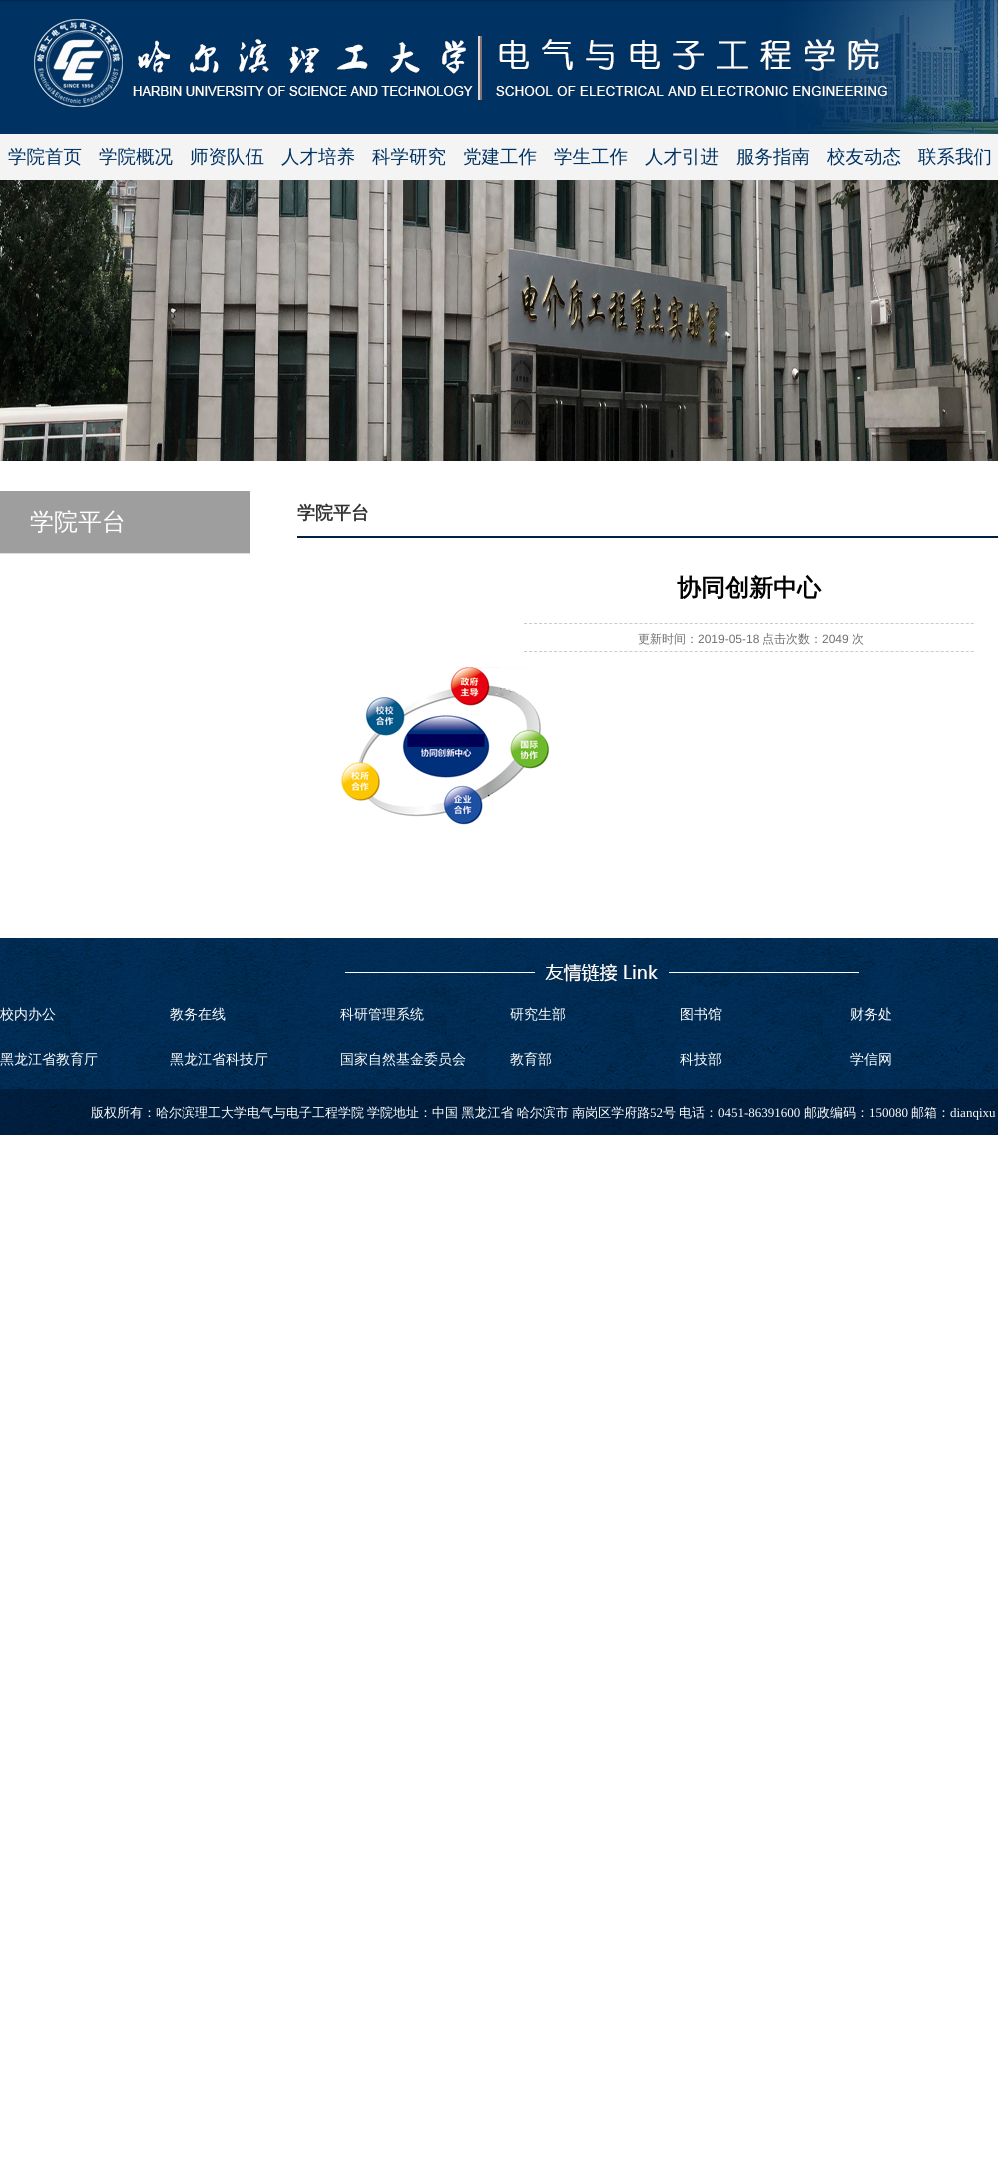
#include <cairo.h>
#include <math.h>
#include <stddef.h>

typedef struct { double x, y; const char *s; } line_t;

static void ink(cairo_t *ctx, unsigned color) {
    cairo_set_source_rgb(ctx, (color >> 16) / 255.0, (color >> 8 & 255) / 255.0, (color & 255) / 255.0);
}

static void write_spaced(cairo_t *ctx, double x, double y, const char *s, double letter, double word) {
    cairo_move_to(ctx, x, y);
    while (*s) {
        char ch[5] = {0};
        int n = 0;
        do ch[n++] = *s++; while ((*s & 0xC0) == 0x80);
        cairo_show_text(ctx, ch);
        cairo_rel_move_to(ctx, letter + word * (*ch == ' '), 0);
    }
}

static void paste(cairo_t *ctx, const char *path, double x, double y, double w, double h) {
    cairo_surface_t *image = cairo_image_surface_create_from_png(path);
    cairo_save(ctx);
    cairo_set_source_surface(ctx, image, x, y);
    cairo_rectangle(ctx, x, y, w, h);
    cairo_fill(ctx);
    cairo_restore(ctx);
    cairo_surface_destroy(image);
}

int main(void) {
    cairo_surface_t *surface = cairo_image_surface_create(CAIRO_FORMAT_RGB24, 998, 2157);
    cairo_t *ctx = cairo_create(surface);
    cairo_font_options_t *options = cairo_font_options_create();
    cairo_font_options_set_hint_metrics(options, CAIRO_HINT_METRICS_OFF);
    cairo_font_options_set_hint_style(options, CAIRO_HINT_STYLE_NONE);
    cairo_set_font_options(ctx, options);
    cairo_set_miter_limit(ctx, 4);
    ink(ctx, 0xFFFFFF);
    cairo_paint(ctx);
    paste(ctx, "media/1.png", 0, 0, 998, 180);
    paste(ctx, "media/2.png", 33, 0, 965, 134);
    cairo_select_font_face(ctx, "WenQuanYi Zen Hei Medium", CAIRO_FONT_SLANT_NORMAL, CAIRO_FONT_WEIGHT_NORMAL);
    cairo_set_font_size(ctx, 18.5);
    ink(ctx, 0x003262);
    {
        static const line_t items[] = {
            {8, 163, "学院首页"},
            {99, 163, "学院概况"},
            {190, 163, "师资队伍"},
            {281, 163, "人才培养"},
            {372, 163, "科学研究"},
            {463, 163, "党建工作"},
            {554, 163, "学生工作"},
            {645, 163, "人才引进"},
            {736, 163, "服务指南"},
            {827, 163, "校友动态"},
            {918, 163, "联系我们"},
        };
        for (size_t i = 0; i < sizeof items / sizeof *items; i++) {
            cairo_move_to(ctx, items[i].x, items[i].y);
            cairo_show_text(ctx, items[i].s);
        }
    }
    paste(ctx, "media/3.png", 0, 180, 998, 281);
    ink(ctx, 0x9E9E9E);
    cairo_rectangle(ctx, 0, 491, 250, 62);
    cairo_fill(ctx);
    cairo_set_font_size(ctx, 24);
    ink(ctx, 0xFFFFFF);
    cairo_move_to(ctx, 30, 530);
    cairo_show_text(ctx, "学院平台");
    ink(ctx, 0xDDDDDD);
    cairo_rectangle(ctx, 0, 553, 250, 1);
    cairo_fill(ctx);
    ink(ctx, 0x002147);
    cairo_rectangle(ctx, 297, 536, 701, 2);
    cairo_fill(ctx);
    cairo_select_font_face(ctx, "WenQuanYi Zen Hei", CAIRO_FONT_SLANT_NORMAL, CAIRO_FONT_WEIGHT_BOLD);
    cairo_set_font_size(ctx, 18);
    ink(ctx, 0x333333);
    cairo_move_to(ctx, 297, 519);
    cairo_show_text(ctx, "学院平台");
    cairo_set_font_size(ctx, 24);
    ink(ctx, 0x000000);
    cairo_move_to(ctx, 677, 596);
    cairo_show_text(ctx, "协同创新中心");
    cairo_new_path(ctx);
    cairo_move_to(ctx, 524, 623.5);
    cairo_line_to(ctx, 974, 623.5);
    ink(ctx, 0xCCCCCC);
    cairo_set_line_width(ctx, 1);
    cairo_set_dash(ctx, (double[]){3, 2.02}, 2, 0);
    cairo_stroke(ctx);
    cairo_new_path(ctx);
    cairo_move_to(ctx, 524, 651.5);
    cairo_line_to(ctx, 974, 651.5);
    cairo_stroke(ctx);
    cairo_select_font_face(ctx, "WenQuanYi Zen Hei Medium", CAIRO_FONT_SLANT_NORMAL, CAIRO_FONT_WEIGHT_NORMAL);
    cairo_set_font_size(ctx, 12);
    ink(ctx, 0x6F6F6F);
    cairo_move_to(ctx, 638, 643);
    cairo_show_text(ctx, "更新时间：");
    cairo_select_font_face(ctx, "Liberation Sans", CAIRO_FONT_SLANT_NORMAL, CAIRO_FONT_WEIGHT_NORMAL);
    cairo_move_to(ctx, 698, 643);
    cairo_show_text(ctx, "2019-05-18");
    cairo_select_font_face(ctx, "WenQuanYi Zen Hei Medium", CAIRO_FONT_SLANT_NORMAL, CAIRO_FONT_WEIGHT_NORMAL);
    cairo_move_to(ctx, 762, 643);
    cairo_show_text(ctx, "点击次数：");
    cairo_select_font_face(ctx, "Liberation Sans", CAIRO_FONT_SLANT_NORMAL, CAIRO_FONT_WEIGHT_NORMAL);
    cairo_move_to(ctx, 822, 643);
    cairo_show_text(ctx, "2049");
    cairo_select_font_face(ctx, "WenQuanYi Zen Hei Medium", CAIRO_FONT_SLANT_NORMAL, CAIRO_FONT_WEIGHT_NORMAL);
    cairo_move_to(ctx, 852, 643);
    cairo_show_text(ctx, "次");
    paste(ctx, "media/4.png", 341, 667, 208, 158);
    paste(ctx, "media/5.png", 0, 938, 998, 197);
    paste(ctx, "media/6.png", 332, 937, 536, 50);
    cairo_set_font_size(ctx, 14);
    ink(ctx, 0xFFFFFF);
    {
        static const line_t items[] = {
            {0, 1019, "校内办公"},
            {170, 1019, "教务在线"},
            {340, 1019, "科研管理系统"},
            {510, 1019, "研究生部"},
            {680, 1019, "图书馆"},
            {850, 1019, "财务处"},
            {0, 1064, "黑龙江省教育厅"},
            {170, 1064, "黑龙江省科技厅"},
            {340, 1064, "国家自然基金委员会"},
            {510, 1064, "教育部"},
            {680, 1064, "科技部"},
            {850, 1064, "学信网"},
        };
        for (size_t i = 0; i < sizeof items / sizeof *items; i++) {
            cairo_move_to(ctx, items[i].x, items[i].y);
            cairo_show_text(ctx, items[i].s);
        }
    }
    cairo_set_font_size(ctx, 13);
    cairo_move_to(ctx, 91, 1117);
    cairo_show_text(ctx, "版权所有：哈尔滨理工大学电气与电子工程学院");
    write_spaced(ctx, 367, 1117, "学院地址：中国 黑龙江省 哈尔滨市 南岗区学府路", 0, -0.5);
    cairo_select_font_face(ctx, "Liberation Serif", CAIRO_FONT_SLANT_NORMAL, CAIRO_FONT_WEIGHT_NORMAL);
    cairo_move_to(ctx, 650, 1117);
    cairo_show_text(ctx, "52");
    cairo_select_font_face(ctx, "WenQuanYi Zen Hei Medium", CAIRO_FONT_SLANT_NORMAL, CAIRO_FONT_WEIGHT_NORMAL);
    cairo_move_to(ctx, 663, 1117);
    cairo_show_text(ctx, "号");
    cairo_move_to(ctx, 679, 1117);
    cairo_show_text(ctx, "电话：");
    cairo_select_font_face(ctx, "Liberation Serif", CAIRO_FONT_SLANT_NORMAL, CAIRO_FONT_WEIGHT_NORMAL);
    cairo_move_to(ctx, 718, 1117);
    cairo_show_text(ctx, "0451-86391600");
    cairo_select_font_face(ctx, "WenQuanYi Zen Hei Medium", CAIRO_FONT_SLANT_NORMAL, CAIRO_FONT_WEIGHT_NORMAL);
    cairo_move_to(ctx, 804, 1117);
    cairo_show_text(ctx, "邮政编码：");
    cairo_select_font_face(ctx, "Liberation Serif", CAIRO_FONT_SLANT_NORMAL, CAIRO_FONT_WEIGHT_NORMAL);
    cairo_move_to(ctx, 869, 1117);
    cairo_show_text(ctx, "150080");
    cairo_select_font_face(ctx, "WenQuanYi Zen Hei Medium", CAIRO_FONT_SLANT_NORMAL, CAIRO_FONT_WEIGHT_NORMAL);
    cairo_move_to(ctx, 911, 1117);
    cairo_show_text(ctx, "邮箱：");
    cairo_select_font_face(ctx, "Liberation Serif", CAIRO_FONT_SLANT_NORMAL, CAIRO_FONT_WEIGHT_NORMAL);
    cairo_move_to(ctx, 950, 1117);
    cairo_show_text(ctx, "dianqixu");
    cairo_surface_write_to_png(surface, "image.png");
    cairo_font_options_destroy(options);
    cairo_destroy(ctx);
    cairo_surface_destroy(surface);
    return 0;
}
